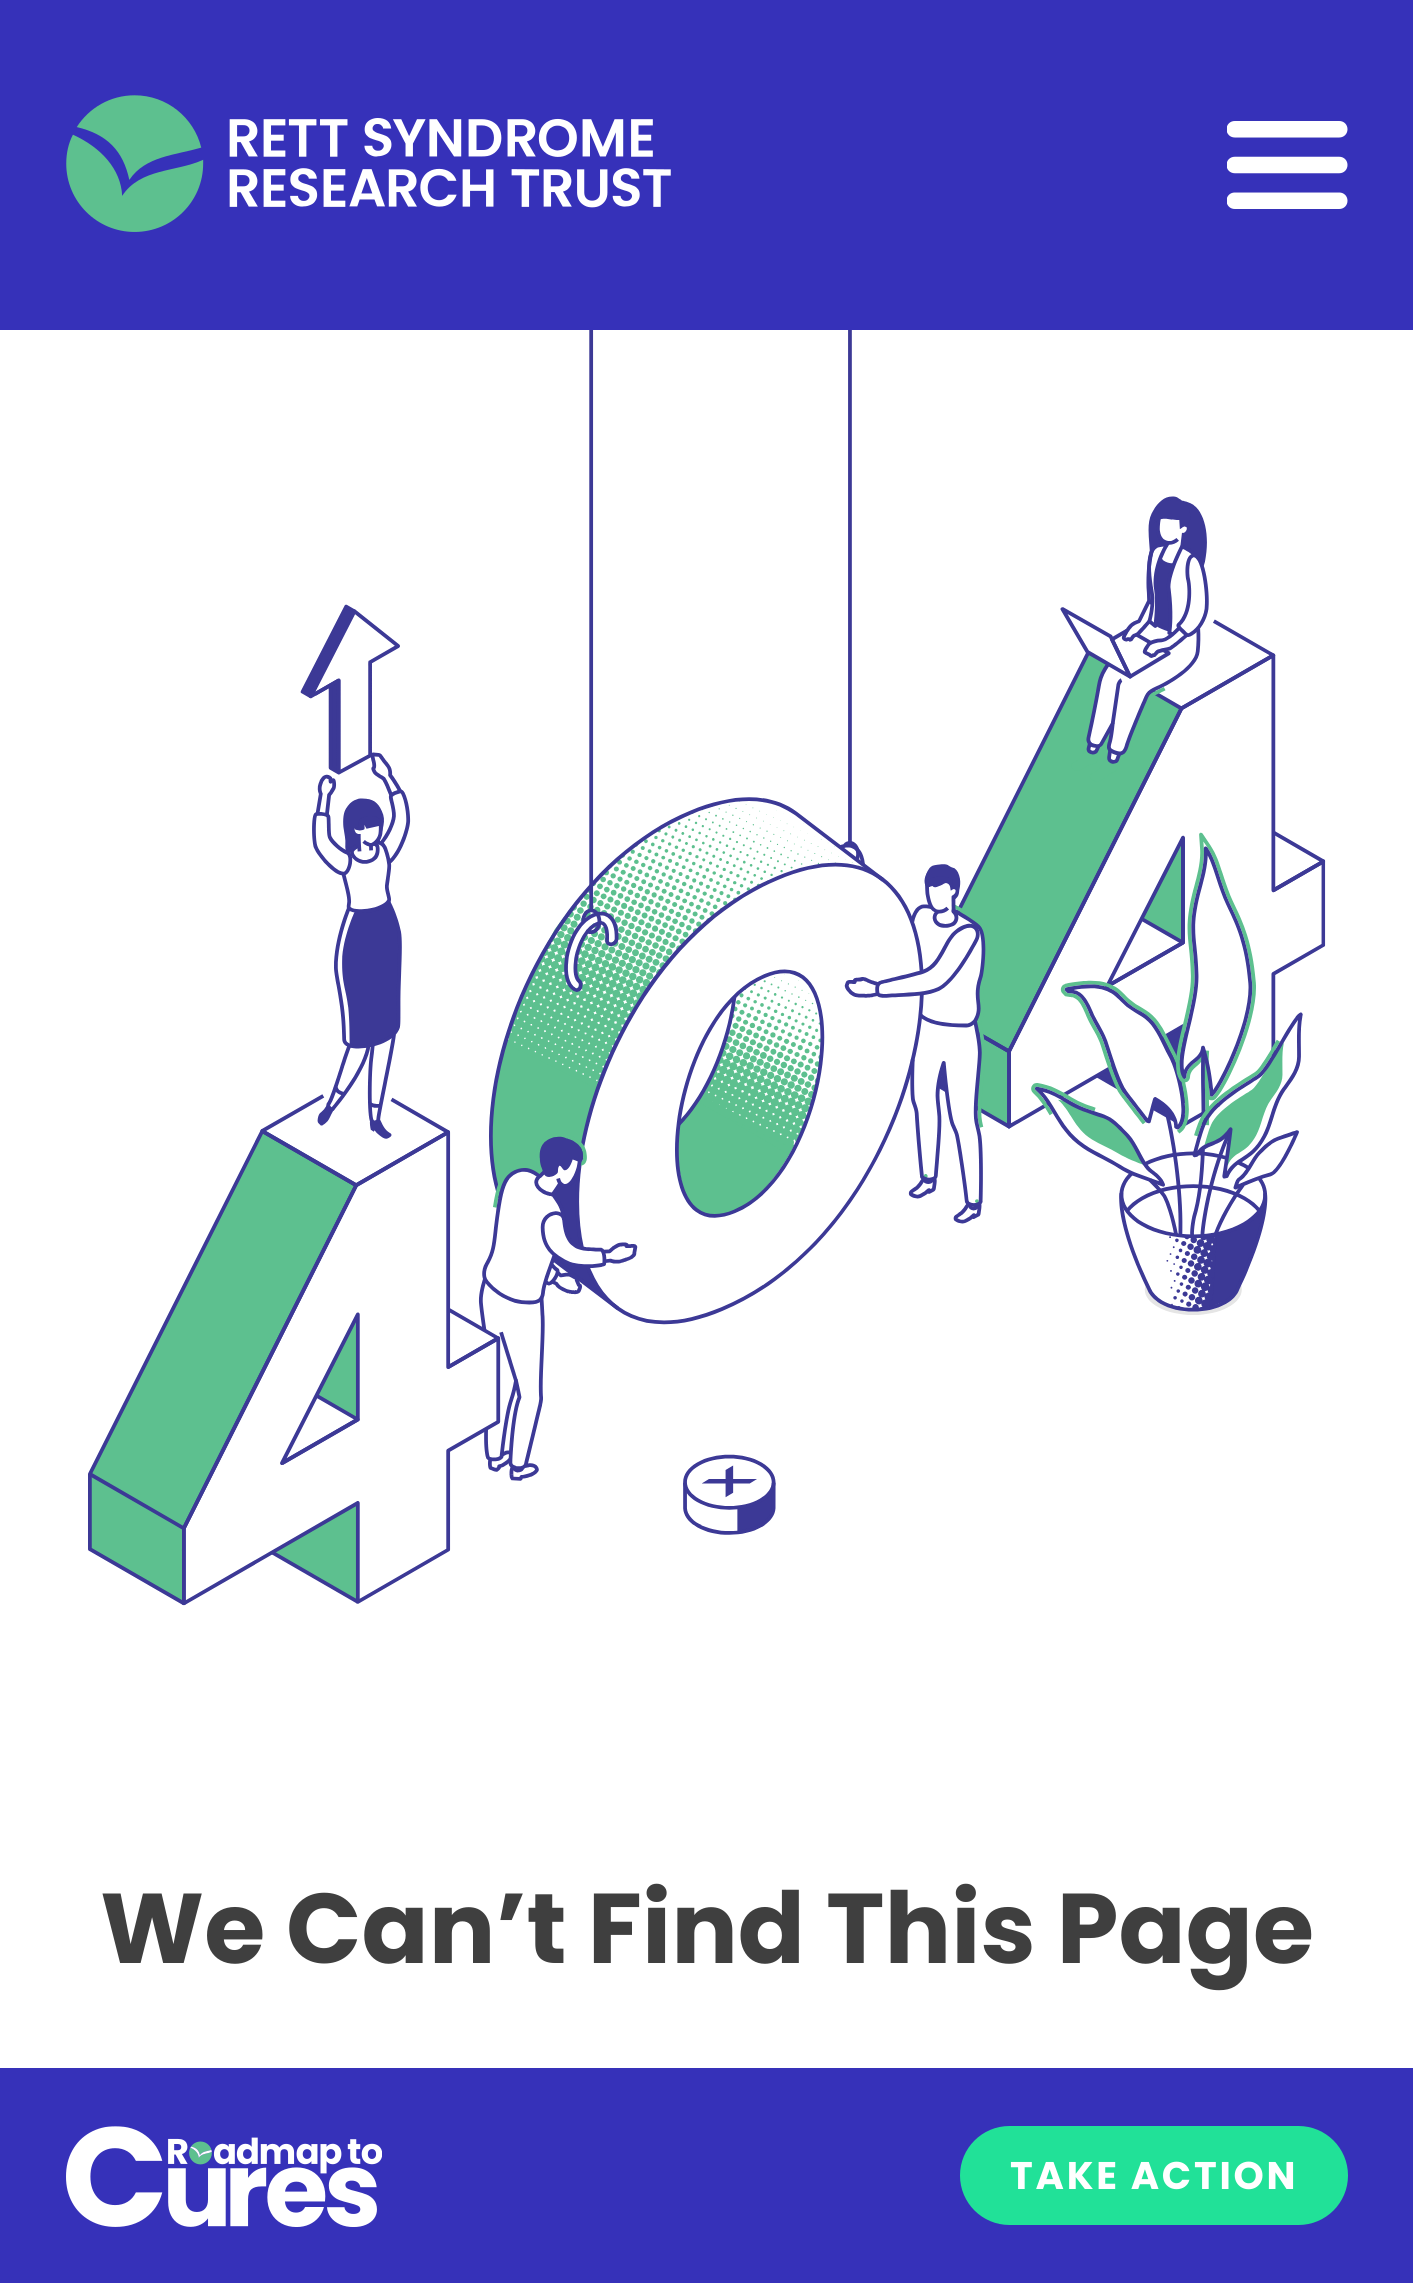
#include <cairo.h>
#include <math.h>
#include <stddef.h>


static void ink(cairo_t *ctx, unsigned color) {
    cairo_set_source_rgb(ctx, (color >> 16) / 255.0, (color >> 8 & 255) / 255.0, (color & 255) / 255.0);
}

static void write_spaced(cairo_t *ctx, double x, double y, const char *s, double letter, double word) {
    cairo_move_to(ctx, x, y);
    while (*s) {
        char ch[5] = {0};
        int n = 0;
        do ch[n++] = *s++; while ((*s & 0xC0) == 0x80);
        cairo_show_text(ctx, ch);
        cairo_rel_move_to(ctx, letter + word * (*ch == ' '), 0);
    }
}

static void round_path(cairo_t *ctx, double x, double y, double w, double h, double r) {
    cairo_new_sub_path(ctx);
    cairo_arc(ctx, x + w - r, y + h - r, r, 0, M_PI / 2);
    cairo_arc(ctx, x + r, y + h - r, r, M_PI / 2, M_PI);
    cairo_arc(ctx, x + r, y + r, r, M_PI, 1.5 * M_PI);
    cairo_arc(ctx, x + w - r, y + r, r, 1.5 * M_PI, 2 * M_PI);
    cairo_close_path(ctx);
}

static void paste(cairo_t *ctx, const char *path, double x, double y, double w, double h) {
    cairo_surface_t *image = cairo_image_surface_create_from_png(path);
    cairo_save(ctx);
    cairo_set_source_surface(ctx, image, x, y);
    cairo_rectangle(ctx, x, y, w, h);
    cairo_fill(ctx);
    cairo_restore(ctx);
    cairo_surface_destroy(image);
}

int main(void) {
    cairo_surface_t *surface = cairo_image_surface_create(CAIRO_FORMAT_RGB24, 1413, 2283);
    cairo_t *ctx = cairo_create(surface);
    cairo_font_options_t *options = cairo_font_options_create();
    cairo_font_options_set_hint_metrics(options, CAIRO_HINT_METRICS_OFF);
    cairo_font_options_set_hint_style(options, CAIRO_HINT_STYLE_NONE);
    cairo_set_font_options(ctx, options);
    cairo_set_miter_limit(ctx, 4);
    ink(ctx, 0xFFFFFF);
    cairo_paint(ctx);
    ink(ctx, 0x3631B9);
    cairo_rectangle(ctx, 0, 0, 1413, 330);
    cairo_fill(ctx);
    paste(ctx, "media/1.png", 66, 95, 605, 137);
    paste(ctx, "media/2.png", 1227, 121, 121, 88);
    paste(ctx, "media/3.png", 88, 330, 1238, 1276);
    cairo_select_font_face(ctx, "Poppins", CAIRO_FONT_SLANT_NORMAL, CAIRO_FONT_WEIGHT_BOLD);
    cairo_set_font_size(ctx, 99);
    ink(ctx, 0x3F3F3F);
    cairo_move_to(ctx, 100, 1963);
    cairo_show_text(ctx, "We Can’t Find This Page");
    ink(ctx, 0x3631B9);
    cairo_rectangle(ctx, 0, 2068, 1413, 215);
    cairo_fill(ctx);
    paste(ctx, "media/4.png", 66, 2126, 316, 101);
    ink(ctx, 0x21E198);
    round_path(ctx, 963, 2129, 382, 93, 46.5);
    cairo_fill_preserve(ctx);
    cairo_set_line_width(ctx, 6);
    cairo_stroke(ctx);
    cairo_set_font_size(ctx, 38.5);
    ink(ctx, 0xFFFFFF);
    write_spaced(ctx, 1010, 2189, "TAKE ACTION", 2.75, 0);
    cairo_surface_write_to_png(surface, "image.png");
    cairo_font_options_destroy(options);
    cairo_destroy(ctx);
    cairo_surface_destroy(surface);
    return 0;
}
